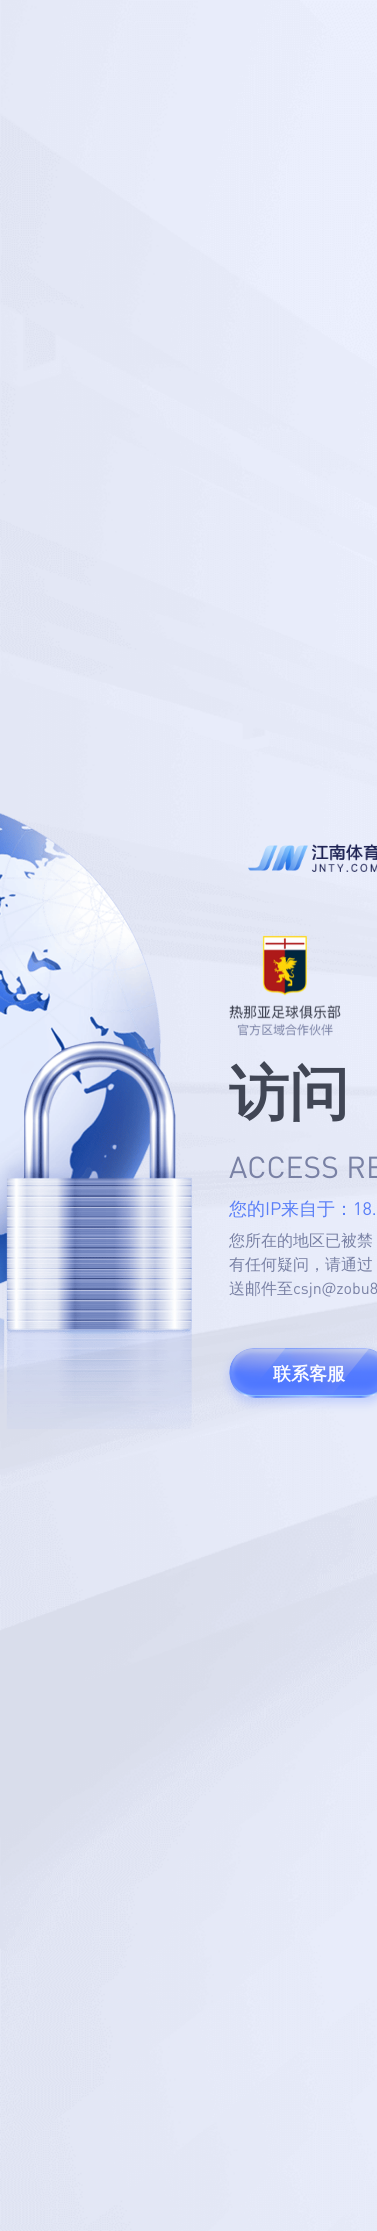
#include <cairo.h>
#include <math.h>
#include <stddef.h>

typedef struct { double x, y; const char *s; } line_t;

static void ink(cairo_t *ctx, unsigned color) {
    cairo_set_source_rgb(ctx, (color >> 16) / 255.0, (color >> 8 & 255) / 255.0, (color & 255) / 255.0);
}

static void round_path(cairo_t *ctx, double x, double y, double w, double h, double r) {
    cairo_new_sub_path(ctx);
    cairo_arc(ctx, x + w - r, y + h - r, r, 0, M_PI / 2);
    cairo_arc(ctx, x + r, y + h - r, r, M_PI / 2, M_PI);
    cairo_arc(ctx, x + r, y + r, r, M_PI, 1.5 * M_PI);
    cairo_arc(ctx, x + w - r, y + r, r, 1.5 * M_PI, 2 * M_PI);
    cairo_close_path(ctx);
}

static void blur_box(cairo_t *ctx, double x, double y, double w, double h, double r, double blur, double alpha) {
    cairo_push_group_with_content(ctx, CAIRO_CONTENT_ALPHA);
    cairo_set_operator(ctx, CAIRO_OPERATOR_SOURCE);
    for (int i = 15; i >= -15 && fmin(w, h) + blur * i / 3 > 0; i -= 2) {
        double e = blur * i / 6;
        cairo_set_source_rgba(ctx, 0, 0, 0, alpha * erfc((i - 1) / 8.5) / 2);
        round_path(ctx, x - e, y - e, w + 2 * e, h + 2 * e, fmax(0, fmin(r + e + blur * .6, fmin(w, h) / 2 + e)));
        cairo_fill(ctx);
    }
    cairo_pattern_t *soft = cairo_pop_group(ctx);
    cairo_mask(ctx, soft);
    cairo_pattern_destroy(soft);
}

static void paste(cairo_t *ctx, const char *path, double x, double y, double w, double h) {
    cairo_surface_t *image = cairo_image_surface_create_from_png(path);
    cairo_save(ctx);
    cairo_set_source_surface(ctx, image, x, y);
    cairo_rectangle(ctx, x, y, w, h);
    cairo_fill(ctx);
    cairo_restore(ctx);
    cairo_surface_destroy(image);
}

int main(void) {
    cairo_surface_t *surface = cairo_image_surface_create(CAIRO_FORMAT_RGB24, 377, 2231);
    cairo_t *ctx = cairo_create(surface);
    cairo_font_options_t *options = cairo_font_options_create();
    cairo_font_options_set_hint_metrics(options, CAIRO_HINT_METRICS_OFF);
    cairo_font_options_set_hint_style(options, CAIRO_HINT_STYLE_NONE);
    cairo_set_font_options(ctx, options);
    cairo_set_miter_limit(ctx, 4);
    ink(ctx, 0xFFFFFF);
    cairo_paint(ctx);
    paste(ctx, "media/1.png", 0, 0, 377, 2231);
    paste(ctx, "media/2.png", 0, 813, 192, 616);
    paste(ctx, "media/3.png", 248, 843, 129, 29);
    paste(ctx, "media/4.png", 229, 935, 112, 101);
    cairo_select_font_face(ctx, "WenQuanYi Zen Hei", CAIRO_FONT_SLANT_NORMAL, CAIRO_FONT_WEIGHT_BOLD);
    cairo_set_font_size(ctx, 60);
    ink(ctx, 0x414655);
    cairo_move_to(ctx, 229, 1114);
    cairo_show_text(ctx, "访问");
    cairo_select_font_face(ctx, "DIN", CAIRO_FONT_SLANT_NORMAL, CAIRO_FONT_WEIGHT_NORMAL);
    cairo_set_font_size(ctx, 30);
    ink(ctx, 0x7981A4);
    cairo_move_to(ctx, 229, 1178);
    cairo_show_text(ctx, "ACCESS RE");
    cairo_select_font_face(ctx, "WenQuanYi Zen Hei Medium", CAIRO_FONT_SLANT_NORMAL, CAIRO_FONT_WEIGHT_NORMAL);
    cairo_set_font_size(ctx, 18);
    ink(ctx, 0x597EF7);
    cairo_move_to(ctx, 229, 1215);
    cairo_show_text(ctx, "您的");
    cairo_select_font_face(ctx, "DIN", CAIRO_FONT_SLANT_NORMAL, CAIRO_FONT_WEIGHT_NORMAL);
    cairo_move_to(ctx, 265, 1215);
    cairo_show_text(ctx, "IP");
    cairo_select_font_face(ctx, "WenQuanYi Zen Hei Medium", CAIRO_FONT_SLANT_NORMAL, CAIRO_FONT_WEIGHT_NORMAL);
    cairo_move_to(ctx, 281, 1215);
    cairo_show_text(ctx, "来自于：");
    cairo_select_font_face(ctx, "DIN", CAIRO_FONT_SLANT_NORMAL, CAIRO_FONT_WEIGHT_NORMAL);
    cairo_move_to(ctx, 353, 1215);
    cairo_show_text(ctx, "18.");
    cairo_select_font_face(ctx, "WenQuanYi Zen Hei Medium", CAIRO_FONT_SLANT_NORMAL, CAIRO_FONT_WEIGHT_NORMAL);
    cairo_set_font_size(ctx, 16);
    ink(ctx, 0x7981A4);
    {
        static const line_t items[] = {
            {229, 1246, "您所在的地区已被禁"},
            {229, 1270, "有任何疑问，请通过"},
            {229, 1294, "送邮件至"},
        };
        for (size_t i = 0; i < sizeof items / sizeof *items; i++) {
            cairo_move_to(ctx, items[i].x, items[i].y);
            cairo_show_text(ctx, items[i].s);
        }
    }
    cairo_select_font_face(ctx, "DIN", CAIRO_FONT_SLANT_NORMAL, CAIRO_FONT_WEIGHT_NORMAL);
    cairo_move_to(ctx, 293, 1294);
    cairo_show_text(ctx, "csjn@zobu8");
    ink(ctx, 0x6788FF);
    blur_box(ctx, 229, 1353, 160, 50, 25, 5, 0.3);
    paste(ctx, "media/5.png", 229, 1348, 148, 50);
    cairo_select_font_face(ctx, "WenQuanYi Zen Hei", CAIRO_FONT_SLANT_NORMAL, CAIRO_FONT_WEIGHT_BOLD);
    cairo_set_font_size(ctx, 18);
    ink(ctx, 0xFAFBFF);
    cairo_move_to(ctx, 273, 1380);
    cairo_show_text(ctx, "联系客服");
    cairo_surface_write_to_png(surface, "image.png");
    cairo_font_options_destroy(options);
    cairo_destroy(ctx);
    cairo_surface_destroy(surface);
    return 0;
}
